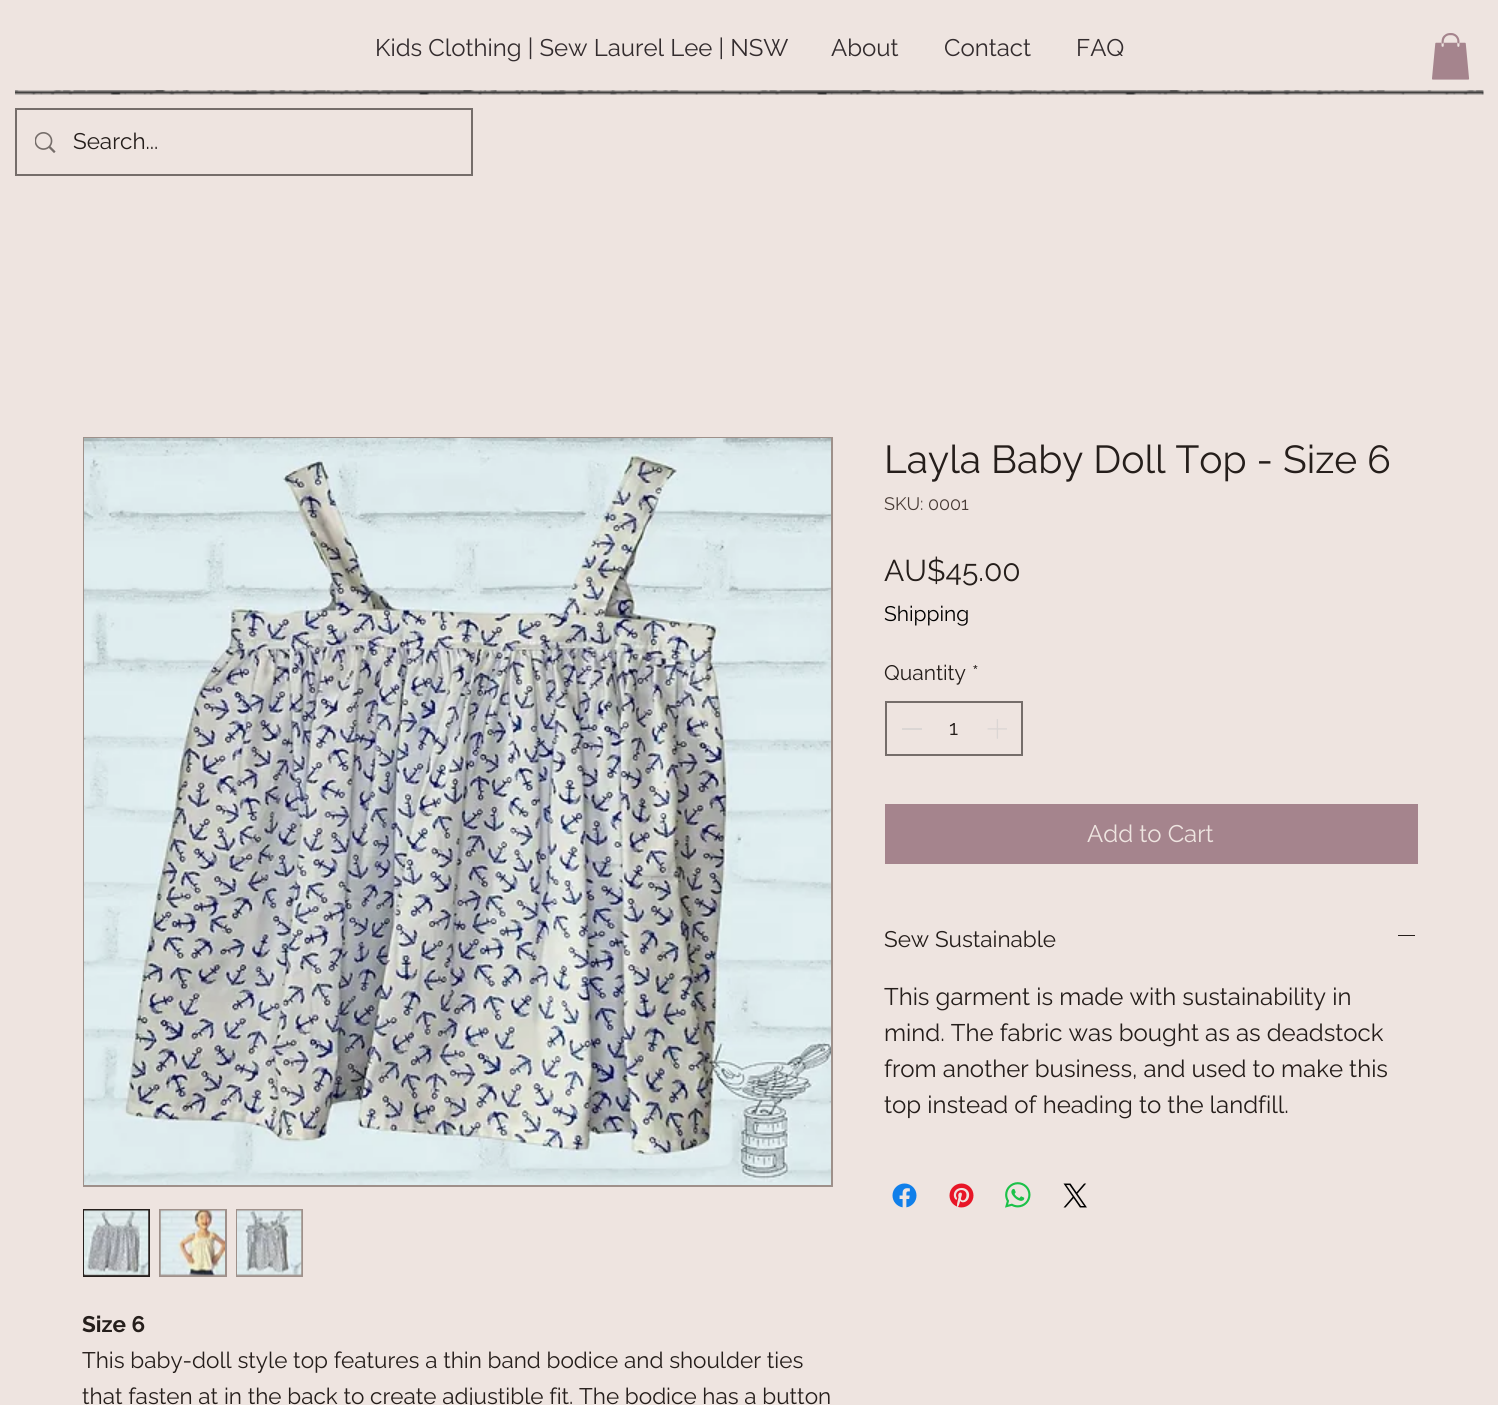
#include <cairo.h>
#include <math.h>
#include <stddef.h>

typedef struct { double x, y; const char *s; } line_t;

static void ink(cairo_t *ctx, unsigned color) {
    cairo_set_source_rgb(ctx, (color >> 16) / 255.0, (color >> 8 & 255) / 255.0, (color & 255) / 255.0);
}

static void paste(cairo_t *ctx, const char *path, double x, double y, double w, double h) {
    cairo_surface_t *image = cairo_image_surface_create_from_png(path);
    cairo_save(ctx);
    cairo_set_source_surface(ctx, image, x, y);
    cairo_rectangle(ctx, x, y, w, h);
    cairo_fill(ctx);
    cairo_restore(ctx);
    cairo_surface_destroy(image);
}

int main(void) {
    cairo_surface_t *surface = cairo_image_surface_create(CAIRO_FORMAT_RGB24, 1498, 1405);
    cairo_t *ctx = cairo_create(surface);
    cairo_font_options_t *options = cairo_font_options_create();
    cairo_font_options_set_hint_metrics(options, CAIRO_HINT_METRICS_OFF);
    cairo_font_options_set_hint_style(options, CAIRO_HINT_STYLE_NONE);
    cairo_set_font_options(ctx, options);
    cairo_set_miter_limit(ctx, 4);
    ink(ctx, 0xEEE4E0);
    cairo_paint(ctx);
    cairo_select_font_face(ctx, "Raleway", CAIRO_FONT_SLANT_NORMAL, CAIRO_FONT_WEIGHT_NORMAL);
    cairo_set_font_size(ctx, 24);
    ink(ctx, 0x332C2E);
    {
        static const line_t items[] = {
            {375, 56, "Kids Clothing | Sew Laurel Lee | NSW"},
            {831, 56, "About"},
            {944, 56, "Contact"},
            {1076, 56, "FAQ"},
        };
        for (size_t i = 0; i < sizeof items / sizeof *items; i++) {
            cairo_move_to(ctx, items[i].x, items[i].y);
            cairo_show_text(ctx, items[i].s);
        }
    }
    paste(ctx, "media/1.png", 1432, 33, 38, 47);
    paste(ctx, "media/2.png", 15, 90, 1469, 5);
    cairo_rectangle(ctx, 16, 109, 456, 66);
    ink(ctx, 0x756D6A);
    cairo_stroke(ctx);
    paste(ctx, "media/3.png", 35, 132, 21, 21);
    cairo_set_font_size(ctx, 22.5);
    ink(ctx, 0x251E1B);
    cairo_move_to(ctx, 73, 149);
    cairo_show_text(ctx, "Search...");
    cairo_set_font_size(ctx, 39);
    cairo_move_to(ctx, 884, 473);
    cairo_show_text(ctx, "Layla Baby Doll Top - Size 6");
    cairo_set_font_size(ctx, 18);
    ink(ctx, 0x493C36);
    cairo_move_to(ctx, 884, 510);
    cairo_show_text(ctx, "SKU: 0001");
    cairo_set_font_size(ctx, 30);
    ink(ctx, 0x251E1B);
    cairo_move_to(ctx, 884, 581);
    cairo_show_text(ctx, "AU$45.00");
    cairo_set_font_size(ctx, 21);
    ink(ctx, 0x000000);
    cairo_move_to(ctx, 884, 621);
    cairo_show_text(ctx, "Shipping");
    ink(ctx, 0x251E1B);
    cairo_move_to(ctx, 884, 680);
    cairo_show_text(ctx, "Quantity");
    cairo_move_to(ctx, 972, 680);
    cairo_show_text(ctx, "*");
    cairo_rectangle(ctx, 886, 702, 136, 53);
    ink(ctx, 0x756D6A);
    cairo_stroke(ctx);
    ink(ctx, 0xDBD6D4);
    cairo_rectangle(ctx, 902, 728, 20, 2);
    cairo_fill(ctx);
    ink(ctx, 0x251E1B);
    cairo_move_to(ctx, 949, 735);
    cairo_show_text(ctx, "1");
    paste(ctx, "media/4.png", 987, 719, 20, 20);
    ink(ctx, 0xA5848D);
    cairo_rectangle(ctx, 885, 804, 533, 60);
    cairo_fill(ctx);
    cairo_set_font_size(ctx, 24);
    ink(ctx, 0xEEE4E0);
    cairo_move_to(ctx, 1087, 842);
    cairo_show_text(ctx, "Add to Cart");
    cairo_set_font_size(ctx, 22.5);
    ink(ctx, 0x251E1B);
    cairo_move_to(ctx, 884, 947);
    cairo_show_text(ctx, "Sew Sustainable");
    cairo_rectangle(ctx, 1398, 935, 17, 1);
    cairo_fill(ctx);
    cairo_set_font_size(ctx, 24);
    {
        static const line_t items[] = {
            {884, 1005, "This garment is made with sustainability in"},
            {884, 1041, "mind. The fabric was bought as as deadstock"},
            {884, 1077, "from another business, and used to make this"},
            {884, 1113, "top instead of heading to the landfill."},
        };
        for (size_t i = 0; i < sizeof items / sizeof *items; i++) {
            cairo_move_to(ctx, items[i].x, items[i].y);
            cairo_show_text(ctx, items[i].s);
        }
    }
    paste(ctx, "media/5.png", 892, 1183, 25, 25);
    paste(ctx, "media/6.png", 949, 1183, 25, 25);
    paste(ctx, "media/7.png", 1005, 1182, 26, 26);
    paste(ctx, "media/8.png", 1063, 1183, 24, 25);
    cairo_rectangle(ctx, 84, 438, 748, 748);
    ink(ctx, 0x9E908A);
    cairo_stroke(ctx);
    paste(ctx, "media/9.png", 84, 438, 747, 747);
    cairo_rectangle(ctx, 85, 1274, 63, 1);
    cairo_fill(ctx);
    cairo_rectangle(ctx, 84, 1210, 65, 66);
    ink(ctx, 0x251E1B);
    cairo_stroke(ctx);
    paste(ctx, "media/10.png", 84, 1210, 65, 66);
    ink(ctx, 0x9E908A);
    cairo_rectangle(ctx, 159, 1209, 68, 68);
    cairo_fill(ctx);
    paste(ctx, "media/11.png", 160, 1210, 65, 66);
    cairo_rectangle(ctx, 236, 1209, 67, 68);
    cairo_fill(ctx);
    paste(ctx, "media/12.png", 237, 1210, 65, 66);
    cairo_select_font_face(ctx, "Raleway", CAIRO_FONT_SLANT_NORMAL, CAIRO_FONT_WEIGHT_BOLD);
    cairo_set_font_size(ctx, 22.5);
    ink(ctx, 0x251E1B);
    cairo_move_to(ctx, 82, 1332);
    cairo_show_text(ctx, "Size 6");
    cairo_select_font_face(ctx, "Raleway", CAIRO_FONT_SLANT_NORMAL, CAIRO_FONT_WEIGHT_NORMAL);
    cairo_move_to(ctx, 82, 1368);
    cairo_show_text(ctx, "This baby-doll style top features a thin band bodice and shoulder ties");
    cairo_move_to(ctx, 82, 1404);
    cairo_show_text(ctx, "that fasten at in the back to create adjustible fit. The bodice has a button");
    cairo_surface_write_to_png(surface, "image.png");
    cairo_font_options_destroy(options);
    cairo_destroy(ctx);
    cairo_surface_destroy(surface);
    return 0;
}
